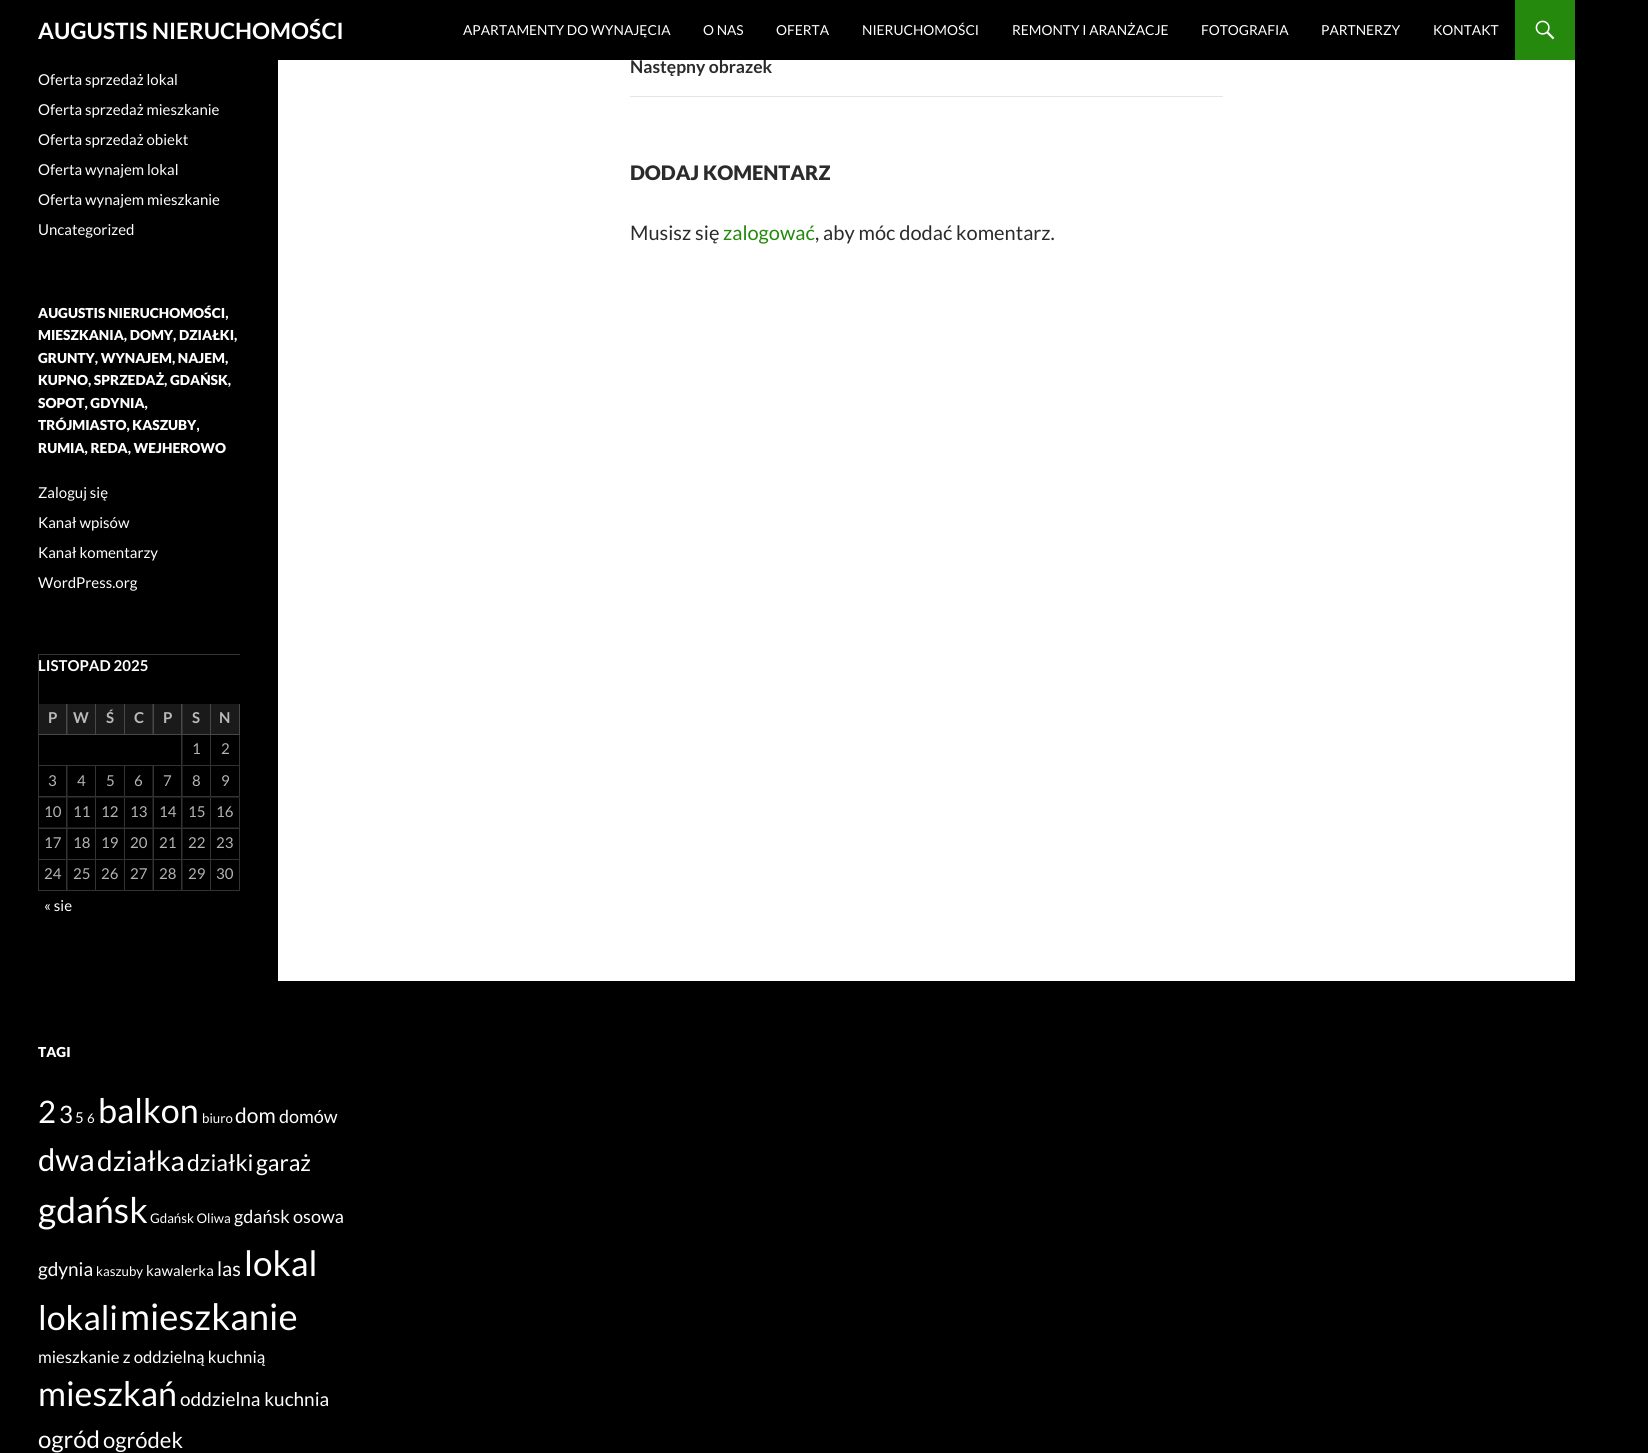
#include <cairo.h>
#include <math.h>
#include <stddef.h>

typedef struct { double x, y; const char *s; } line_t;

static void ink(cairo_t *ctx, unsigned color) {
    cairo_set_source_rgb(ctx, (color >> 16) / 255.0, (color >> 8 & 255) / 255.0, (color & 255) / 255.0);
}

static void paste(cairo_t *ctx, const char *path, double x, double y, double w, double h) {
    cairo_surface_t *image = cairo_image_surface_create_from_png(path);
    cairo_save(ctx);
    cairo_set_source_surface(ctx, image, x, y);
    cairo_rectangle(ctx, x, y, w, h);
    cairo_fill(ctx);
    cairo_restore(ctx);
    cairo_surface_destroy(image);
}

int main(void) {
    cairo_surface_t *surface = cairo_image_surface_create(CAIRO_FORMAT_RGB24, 1648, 1453);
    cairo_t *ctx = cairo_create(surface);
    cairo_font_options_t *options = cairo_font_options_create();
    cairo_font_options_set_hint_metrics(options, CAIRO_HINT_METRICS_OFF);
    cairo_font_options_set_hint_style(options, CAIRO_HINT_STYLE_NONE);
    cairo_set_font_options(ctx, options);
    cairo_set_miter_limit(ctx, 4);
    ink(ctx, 0x000000);
    cairo_paint(ctx);
    ink(ctx, 0xFFFFFF);
    cairo_rectangle(ctx, 278, 60, 1297, 921);
    cairo_fill(ctx);
    cairo_select_font_face(ctx, "Lato", CAIRO_FONT_SLANT_NORMAL, CAIRO_FONT_WEIGHT_BOLD);
    cairo_set_font_size(ctx, 22.5);
    cairo_move_to(ctx, 38, 39);
    cairo_show_text(ctx, "AUGUSTIS NIERUCHOMOŚCI");
    cairo_select_font_face(ctx, "Lato", CAIRO_FONT_SLANT_NORMAL, CAIRO_FONT_WEIGHT_NORMAL);
    cairo_set_font_size(ctx, 13.75);
    {
        static const line_t items[] = {
            {463, 35, "APARTAMENTY DO WYNAJĘCIA"},
            {703, 35, "O NAS"},
            {776, 35, "OFERTA"},
            {862, 35, "NIERUCHOMOŚCI"},
            {1012, 35, "REMONTY I ARANŻACJE"},
            {1201, 35, "FOTOGRAFIA"},
            {1321, 35, "PARTNERZY"},
            {1433, 35, "KONTAKT"},
        };
        for (size_t i = 0; i < sizeof items / sizeof *items; i++) {
            cairo_move_to(ctx, items[i].x, items[i].y);
            cairo_show_text(ctx, items[i].s);
        }
    }
    ink(ctx, 0x24890D);
    cairo_rectangle(ctx, 1515, 0, 60, 60);
    cairo_fill(ctx);
    paste(ctx, "media/1.png", 1535, 20, 20, 20);
    cairo_set_font_size(ctx, 15);
    ink(ctx, 0xFFFFFF);
    {
        static const line_t items[] = {
            {38, 85, "Oferta sprzedaż lokal"},
            {38, 115, "Oferta sprzedaż mieszkanie"},
            {38, 145, "Oferta sprzedaż obiekt"},
            {38, 175, "Oferta wynajem lokal"},
            {38, 205, "Oferta wynajem mieszkanie"},
            {38, 235, "Uncategorized"},
        };
        for (size_t i = 0; i < sizeof items / sizeof *items; i++) {
            cairo_move_to(ctx, items[i].x, items[i].y);
            cairo_show_text(ctx, items[i].s);
        }
    }
    cairo_select_font_face(ctx, "Lato Black", CAIRO_FONT_SLANT_NORMAL, CAIRO_FONT_WEIGHT_NORMAL);
    cairo_set_font_size(ctx, 13.75);
    {
        static const line_t items[] = {
            {38, 318, "AUGUSTIS NIERUCHOMOŚCI,"},
            {38, 340, "MIESZKANIA, DOMY, DZIAŁKI,"},
            {38, 363, "GRUNTY, WYNAJEM, NAJEM,"},
            {38, 385, "KUPNO, SPRZEDAŻ, GDAŃSK,"},
            {38, 408, "SOPOT, GDYNIA,"},
            {38, 430, "TRÓJMIASTO, KASZUBY,"},
            {38, 453, "RUMIA, REDA, WEJHEROWO"},
        };
        for (size_t i = 0; i < sizeof items / sizeof *items; i++) {
            cairo_move_to(ctx, items[i].x, items[i].y);
            cairo_show_text(ctx, items[i].s);
        }
    }
    cairo_select_font_face(ctx, "Lato", CAIRO_FONT_SLANT_NORMAL, CAIRO_FONT_WEIGHT_NORMAL);
    cairo_set_font_size(ctx, 15);
    {
        static const line_t items[] = {
            {38, 498, "Zaloguj się"},
            {38, 528, "Kanał wpisów"},
            {38, 558, "Kanał komentarzy"},
            {38, 588, "WordPress.org"},
        };
        for (size_t i = 0; i < sizeof items / sizeof *items; i++) {
            cairo_move_to(ctx, items[i].x, items[i].y);
            cairo_show_text(ctx, items[i].s);
        }
    }
    ink(ctx, 0x333333);
    cairo_new_path(ctx);
    cairo_move_to(ctx, 38, 654);
    cairo_line_to(ctx, 240, 654);
    cairo_line_to(ctx, 240, 655);
    cairo_line_to(ctx, 39, 655);
    cairo_close_path(ctx);
    cairo_fill(ctx);
    cairo_set_source_rgba(ctx, 1, 1, 1, 0.2);
    cairo_new_path(ctx);
    cairo_move_to(ctx, 38, 891);
    cairo_line_to(ctx, 38, 654);
    cairo_line_to(ctx, 39, 655);
    cairo_line_to(ctx, 39, 891);
    cairo_close_path(ctx);
    cairo_fill(ctx);
    cairo_select_font_face(ctx, "Lato", CAIRO_FONT_SLANT_NORMAL, CAIRO_FONT_WEIGHT_BOLD);
    ink(ctx, 0xFFFFFF);
    cairo_move_to(ctx, 38, 671);
    cairo_show_text(ctx, "LISTOPAD 2025");
    ink(ctx, 0x1A1A1A);
    cairo_rectangle(ctx, 39, 704, 201, 31);
    cairo_fill(ctx);
    ink(ctx, 0x484848);
    cairo_new_path(ctx);
    cairo_move_to(ctx, 67.5, 704);
    cairo_line_to(ctx, 67.5, 735);
    cairo_line_to(ctx, 66, 734);
    cairo_line_to(ctx, 66, 704);
    cairo_close_path(ctx);
    cairo_fill(ctx);
    cairo_set_source_rgba(ctx, 1, 1, 1, 0.2);
    cairo_new_path(ctx);
    cairo_move_to(ctx, 67.5, 735);
    cairo_line_to(ctx, 39, 735);
    cairo_line_to(ctx, 39, 734);
    cairo_line_to(ctx, 66, 734);
    cairo_close_path(ctx);
    cairo_fill(ctx);
    ink(ctx, 0xBABABA);
    cairo_move_to(ctx, 48, 723);
    cairo_show_text(ctx, "P");
    ink(ctx, 0x484848);
    cairo_new_path(ctx);
    cairo_move_to(ctx, 96, 704);
    cairo_line_to(ctx, 96, 735);
    cairo_line_to(ctx, 95, 734);
    cairo_line_to(ctx, 95, 704);
    cairo_close_path(ctx);
    cairo_fill(ctx);
    cairo_set_source_rgba(ctx, 1, 1, 1, 0.2);
    cairo_new_path(ctx);
    cairo_move_to(ctx, 96, 735);
    cairo_line_to(ctx, 67.5, 735);
    cairo_line_to(ctx, 67.5, 734);
    cairo_line_to(ctx, 95, 734);
    cairo_close_path(ctx);
    cairo_fill(ctx);
    ink(ctx, 0xBABABA);
    cairo_move_to(ctx, 73, 723);
    cairo_show_text(ctx, "W");
    ink(ctx, 0x484848);
    cairo_new_path(ctx);
    cairo_move_to(ctx, 125, 704);
    cairo_line_to(ctx, 125, 735);
    cairo_line_to(ctx, 124, 734);
    cairo_line_to(ctx, 124, 704);
    cairo_close_path(ctx);
    cairo_fill(ctx);
    cairo_set_source_rgba(ctx, 1, 1, 1, 0.2);
    cairo_new_path(ctx);
    cairo_move_to(ctx, 125, 735);
    cairo_line_to(ctx, 96, 735);
    cairo_line_to(ctx, 96, 734);
    cairo_line_to(ctx, 124, 734);
    cairo_close_path(ctx);
    cairo_fill(ctx);
    ink(ctx, 0xBABABA);
    cairo_move_to(ctx, 106, 723);
    cairo_show_text(ctx, "Ś");
    ink(ctx, 0x484848);
    cairo_new_path(ctx);
    cairo_move_to(ctx, 154, 704);
    cairo_line_to(ctx, 154, 735);
    cairo_line_to(ctx, 152.5, 734);
    cairo_line_to(ctx, 152.5, 704);
    cairo_close_path(ctx);
    cairo_fill(ctx);
    cairo_set_source_rgba(ctx, 1, 1, 1, 0.2);
    cairo_new_path(ctx);
    cairo_move_to(ctx, 154, 735);
    cairo_line_to(ctx, 125, 735);
    cairo_line_to(ctx, 125, 734);
    cairo_line_to(ctx, 152.5, 734);
    cairo_close_path(ctx);
    cairo_fill(ctx);
    ink(ctx, 0xBABABA);
    cairo_move_to(ctx, 134, 723);
    cairo_show_text(ctx, "C");
    ink(ctx, 0x484848);
    cairo_new_path(ctx);
    cairo_move_to(ctx, 182.5, 704);
    cairo_line_to(ctx, 182.5, 735);
    cairo_line_to(ctx, 181, 734);
    cairo_line_to(ctx, 181, 704);
    cairo_close_path(ctx);
    cairo_fill(ctx);
    cairo_set_source_rgba(ctx, 1, 1, 1, 0.2);
    cairo_new_path(ctx);
    cairo_move_to(ctx, 182.5, 735);
    cairo_line_to(ctx, 154, 735);
    cairo_line_to(ctx, 154, 734);
    cairo_line_to(ctx, 181, 734);
    cairo_close_path(ctx);
    cairo_fill(ctx);
    ink(ctx, 0xBABABA);
    cairo_move_to(ctx, 163, 723);
    cairo_show_text(ctx, "P");
    ink(ctx, 0x484848);
    cairo_new_path(ctx);
    cairo_move_to(ctx, 211, 704);
    cairo_line_to(ctx, 211, 735);
    cairo_line_to(ctx, 210, 734);
    cairo_line_to(ctx, 210, 704);
    cairo_close_path(ctx);
    cairo_fill(ctx);
    cairo_set_source_rgba(ctx, 1, 1, 1, 0.2);
    cairo_new_path(ctx);
    cairo_move_to(ctx, 211, 735);
    cairo_line_to(ctx, 182.5, 735);
    cairo_line_to(ctx, 182.5, 734);
    cairo_line_to(ctx, 210, 734);
    cairo_close_path(ctx);
    cairo_fill(ctx);
    ink(ctx, 0xBABABA);
    cairo_move_to(ctx, 192, 723);
    cairo_show_text(ctx, "S");
    ink(ctx, 0x484848);
    cairo_new_path(ctx);
    cairo_move_to(ctx, 240, 704);
    cairo_line_to(ctx, 240, 735);
    cairo_line_to(ctx, 239, 734);
    cairo_line_to(ctx, 239, 704);
    cairo_close_path(ctx);
    cairo_fill(ctx);
    cairo_set_source_rgba(ctx, 1, 1, 1, 0.2);
    cairo_new_path(ctx);
    cairo_move_to(ctx, 240, 735);
    cairo_line_to(ctx, 211, 735);
    cairo_line_to(ctx, 211, 734);
    cairo_line_to(ctx, 239, 734);
    cairo_close_path(ctx);
    cairo_fill(ctx);
    ink(ctx, 0xBABABA);
    cairo_move_to(ctx, 219, 723);
    cairo_show_text(ctx, "N");
    ink(ctx, 0x333333);
    cairo_new_path(ctx);
    cairo_move_to(ctx, 182.5, 735);
    cairo_line_to(ctx, 182.5, 766);
    cairo_line_to(ctx, 181, 765);
    cairo_line_to(ctx, 181, 735);
    cairo_close_path(ctx);
    cairo_fill(ctx);
    cairo_set_source_rgba(ctx, 1, 1, 1, 0.2);
    cairo_new_path(ctx);
    cairo_move_to(ctx, 182, 766);
    cairo_line_to(ctx, 39, 766);
    cairo_line_to(ctx, 39, 765);
    cairo_line_to(ctx, 181, 765);
    cairo_close_path(ctx);
    cairo_fill(ctx);
    ink(ctx, 0x333333);
    cairo_new_path(ctx);
    cairo_move_to(ctx, 211, 735);
    cairo_line_to(ctx, 211, 766);
    cairo_line_to(ctx, 210, 765);
    cairo_line_to(ctx, 210, 735);
    cairo_close_path(ctx);
    cairo_fill(ctx);
    cairo_set_source_rgba(ctx, 1, 1, 1, 0.2);
    cairo_new_path(ctx);
    cairo_move_to(ctx, 211, 766);
    cairo_line_to(ctx, 182.5, 766);
    cairo_line_to(ctx, 182.5, 765);
    cairo_line_to(ctx, 210, 765);
    cairo_close_path(ctx);
    cairo_fill(ctx);
    cairo_select_font_face(ctx, "Lato", CAIRO_FONT_SLANT_NORMAL, CAIRO_FONT_WEIGHT_NORMAL);
    ink(ctx, 0xB3B3B3);
    cairo_move_to(ctx, 192, 754);
    cairo_show_text(ctx, "1");
    ink(ctx, 0x333333);
    cairo_new_path(ctx);
    cairo_move_to(ctx, 240, 735);
    cairo_line_to(ctx, 240, 766);
    cairo_line_to(ctx, 239, 765);
    cairo_line_to(ctx, 239, 735);
    cairo_close_path(ctx);
    cairo_fill(ctx);
    cairo_set_source_rgba(ctx, 1, 1, 1, 0.2);
    cairo_new_path(ctx);
    cairo_move_to(ctx, 240, 766);
    cairo_line_to(ctx, 211, 766);
    cairo_line_to(ctx, 211, 765);
    cairo_line_to(ctx, 239, 765);
    cairo_close_path(ctx);
    cairo_fill(ctx);
    ink(ctx, 0xB3B3B3);
    cairo_move_to(ctx, 221, 754);
    cairo_show_text(ctx, "2");
    ink(ctx, 0x333333);
    cairo_new_path(ctx);
    cairo_move_to(ctx, 67.5, 766);
    cairo_line_to(ctx, 67.5, 797.5);
    cairo_line_to(ctx, 66, 796);
    cairo_line_to(ctx, 66, 766);
    cairo_close_path(ctx);
    cairo_fill(ctx);
    cairo_set_source_rgba(ctx, 1, 1, 1, 0.2);
    cairo_new_path(ctx);
    cairo_move_to(ctx, 67.5, 797.5);
    cairo_line_to(ctx, 39, 797.5);
    cairo_line_to(ctx, 39, 796);
    cairo_line_to(ctx, 66, 796);
    cairo_close_path(ctx);
    cairo_fill(ctx);
    ink(ctx, 0xB3B3B3);
    cairo_move_to(ctx, 48, 786);
    cairo_show_text(ctx, "3");
    ink(ctx, 0x333333);
    cairo_new_path(ctx);
    cairo_move_to(ctx, 96, 766);
    cairo_line_to(ctx, 96, 797.5);
    cairo_line_to(ctx, 95, 796);
    cairo_line_to(ctx, 95, 766);
    cairo_close_path(ctx);
    cairo_fill(ctx);
    cairo_set_source_rgba(ctx, 1, 1, 1, 0.2);
    cairo_new_path(ctx);
    cairo_move_to(ctx, 96, 797.5);
    cairo_line_to(ctx, 67.5, 797.5);
    cairo_line_to(ctx, 67.5, 796);
    cairo_line_to(ctx, 95, 796);
    cairo_close_path(ctx);
    cairo_fill(ctx);
    ink(ctx, 0xB3B3B3);
    cairo_move_to(ctx, 77, 786);
    cairo_show_text(ctx, "4");
    ink(ctx, 0x333333);
    cairo_new_path(ctx);
    cairo_move_to(ctx, 125, 766);
    cairo_line_to(ctx, 125, 797.5);
    cairo_line_to(ctx, 124, 796);
    cairo_line_to(ctx, 124, 766);
    cairo_close_path(ctx);
    cairo_fill(ctx);
    cairo_new_path(ctx);
    cairo_move_to(ctx, 125, 797.5);
    cairo_line_to(ctx, 96, 797.5);
    cairo_line_to(ctx, 96, 796);
    cairo_line_to(ctx, 124, 796);
    cairo_close_path(ctx);
    cairo_move_to(ctx, 154, 766);
    cairo_line_to(ctx, 154, 797.5);
    cairo_line_to(ctx, 152.5, 796);
    cairo_line_to(ctx, 152.5, 766);
    cairo_close_path(ctx);
    cairo_fill(ctx);
    ink(ctx, 0xB3B3B3);
    cairo_move_to(ctx, 106, 786);
    cairo_show_text(ctx, "5");
    cairo_set_source_rgba(ctx, 1, 1, 1, 0.2);
    cairo_new_path(ctx);
    cairo_move_to(ctx, 154, 797.5);
    cairo_line_to(ctx, 125, 797.5);
    cairo_line_to(ctx, 125, 796);
    cairo_line_to(ctx, 152.5, 796);
    cairo_close_path(ctx);
    cairo_fill(ctx);
    ink(ctx, 0xB3B3B3);
    cairo_move_to(ctx, 134, 786);
    cairo_show_text(ctx, "6");
    ink(ctx, 0x333333);
    cairo_new_path(ctx);
    cairo_move_to(ctx, 182.5, 766);
    cairo_line_to(ctx, 182.5, 797.5);
    cairo_line_to(ctx, 181, 796);
    cairo_line_to(ctx, 181, 766);
    cairo_close_path(ctx);
    cairo_fill(ctx);
    cairo_set_source_rgba(ctx, 1, 1, 1, 0.2);
    cairo_new_path(ctx);
    cairo_move_to(ctx, 182.5, 797.5);
    cairo_line_to(ctx, 154, 797.5);
    cairo_line_to(ctx, 154, 796);
    cairo_line_to(ctx, 181, 796);
    cairo_close_path(ctx);
    cairo_fill(ctx);
    ink(ctx, 0xB3B3B3);
    cairo_move_to(ctx, 163, 786);
    cairo_show_text(ctx, "7");
    ink(ctx, 0x333333);
    cairo_new_path(ctx);
    cairo_move_to(ctx, 211, 766);
    cairo_line_to(ctx, 211, 797.5);
    cairo_line_to(ctx, 210, 796);
    cairo_line_to(ctx, 210, 766);
    cairo_close_path(ctx);
    cairo_fill(ctx);
    cairo_set_source_rgba(ctx, 1, 1, 1, 0.2);
    cairo_new_path(ctx);
    cairo_move_to(ctx, 211, 797.5);
    cairo_line_to(ctx, 182.5, 797.5);
    cairo_line_to(ctx, 182.5, 796);
    cairo_line_to(ctx, 210, 796);
    cairo_close_path(ctx);
    cairo_fill(ctx);
    ink(ctx, 0xB3B3B3);
    cairo_move_to(ctx, 192, 786);
    cairo_show_text(ctx, "8");
    ink(ctx, 0x333333);
    cairo_new_path(ctx);
    cairo_move_to(ctx, 240, 766);
    cairo_line_to(ctx, 240, 797.5);
    cairo_line_to(ctx, 239, 796);
    cairo_line_to(ctx, 239, 766);
    cairo_close_path(ctx);
    cairo_fill(ctx);
    cairo_new_path(ctx);
    cairo_move_to(ctx, 240, 797.5);
    cairo_line_to(ctx, 211, 797.5);
    cairo_line_to(ctx, 211, 796);
    cairo_line_to(ctx, 239, 796);
    cairo_close_path(ctx);
    cairo_fill(ctx);
    ink(ctx, 0xB3B3B3);
    cairo_move_to(ctx, 221, 786);
    cairo_show_text(ctx, "9");
    ink(ctx, 0x333333);
    cairo_new_path(ctx);
    cairo_move_to(ctx, 67.5, 797.5);
    cairo_line_to(ctx, 67.5, 829);
    cairo_line_to(ctx, 66, 827.5);
    cairo_line_to(ctx, 66, 797.5);
    cairo_close_path(ctx);
    cairo_fill(ctx);
    cairo_set_source_rgba(ctx, 1, 1, 1, 0.2);
    cairo_new_path(ctx);
    cairo_move_to(ctx, 67.5, 829);
    cairo_line_to(ctx, 39, 829);
    cairo_line_to(ctx, 39, 827.5);
    cairo_line_to(ctx, 66, 827.5);
    cairo_close_path(ctx);
    cairo_fill(ctx);
    ink(ctx, 0xB3B3B3);
    cairo_move_to(ctx, 44, 817);
    cairo_show_text(ctx, "10");
    ink(ctx, 0x333333);
    cairo_new_path(ctx);
    cairo_move_to(ctx, 96, 797.5);
    cairo_line_to(ctx, 96, 829);
    cairo_line_to(ctx, 95, 827.5);
    cairo_line_to(ctx, 95, 797.5);
    cairo_close_path(ctx);
    cairo_fill(ctx);
    cairo_set_source_rgba(ctx, 1, 1, 1, 0.2);
    cairo_new_path(ctx);
    cairo_move_to(ctx, 96, 829);
    cairo_line_to(ctx, 67.5, 829);
    cairo_line_to(ctx, 67.5, 827.5);
    cairo_line_to(ctx, 95, 827.5);
    cairo_close_path(ctx);
    cairo_fill(ctx);
    ink(ctx, 0xB3B3B3);
    cairo_move_to(ctx, 73, 817);
    cairo_show_text(ctx, "11");
    ink(ctx, 0x333333);
    cairo_new_path(ctx);
    cairo_move_to(ctx, 125, 797.5);
    cairo_line_to(ctx, 125, 829);
    cairo_line_to(ctx, 124, 827.5);
    cairo_line_to(ctx, 124, 797.5);
    cairo_close_path(ctx);
    cairo_fill(ctx);
    cairo_set_source_rgba(ctx, 1, 1, 1, 0.2);
    cairo_new_path(ctx);
    cairo_move_to(ctx, 125, 829);
    cairo_line_to(ctx, 96, 829);
    cairo_line_to(ctx, 96, 827.5);
    cairo_line_to(ctx, 124, 827.5);
    cairo_close_path(ctx);
    cairo_fill(ctx);
    ink(ctx, 0xB3B3B3);
    cairo_move_to(ctx, 101, 817);
    cairo_show_text(ctx, "12");
    ink(ctx, 0x333333);
    cairo_new_path(ctx);
    cairo_move_to(ctx, 154, 797.5);
    cairo_line_to(ctx, 154, 829);
    cairo_line_to(ctx, 152.5, 827.5);
    cairo_line_to(ctx, 152.5, 797.5);
    cairo_close_path(ctx);
    cairo_fill(ctx);
    cairo_set_source_rgba(ctx, 1, 1, 1, 0.2);
    cairo_new_path(ctx);
    cairo_move_to(ctx, 154, 829);
    cairo_line_to(ctx, 125, 829);
    cairo_line_to(ctx, 125, 827.5);
    cairo_line_to(ctx, 152.5, 827.5);
    cairo_close_path(ctx);
    cairo_fill(ctx);
    ink(ctx, 0xB3B3B3);
    cairo_move_to(ctx, 130, 817);
    cairo_show_text(ctx, "13");
    ink(ctx, 0x333333);
    cairo_new_path(ctx);
    cairo_move_to(ctx, 182.5, 797.5);
    cairo_line_to(ctx, 182.5, 829);
    cairo_line_to(ctx, 181, 827.5);
    cairo_line_to(ctx, 181, 797.5);
    cairo_close_path(ctx);
    cairo_fill(ctx);
    cairo_set_source_rgba(ctx, 1, 1, 1, 0.2);
    cairo_new_path(ctx);
    cairo_move_to(ctx, 182.5, 829);
    cairo_line_to(ctx, 154, 829);
    cairo_line_to(ctx, 154, 827.5);
    cairo_line_to(ctx, 181, 827.5);
    cairo_close_path(ctx);
    cairo_fill(ctx);
    ink(ctx, 0xB3B3B3);
    cairo_move_to(ctx, 159, 817);
    cairo_show_text(ctx, "14");
    ink(ctx, 0x333333);
    cairo_new_path(ctx);
    cairo_move_to(ctx, 211, 797.5);
    cairo_line_to(ctx, 211, 829);
    cairo_line_to(ctx, 210, 827.5);
    cairo_line_to(ctx, 210, 797.5);
    cairo_close_path(ctx);
    cairo_fill(ctx);
    cairo_set_source_rgba(ctx, 1, 1, 1, 0.2);
    cairo_new_path(ctx);
    cairo_move_to(ctx, 211, 829);
    cairo_line_to(ctx, 182.5, 829);
    cairo_line_to(ctx, 182.5, 827.5);
    cairo_line_to(ctx, 210, 827.5);
    cairo_close_path(ctx);
    cairo_fill(ctx);
    ink(ctx, 0xB3B3B3);
    cairo_move_to(ctx, 188, 817);
    cairo_show_text(ctx, "15");
    ink(ctx, 0x333333);
    cairo_new_path(ctx);
    cairo_move_to(ctx, 240, 797.5);
    cairo_line_to(ctx, 240, 829);
    cairo_line_to(ctx, 239, 827.5);
    cairo_line_to(ctx, 239, 797.5);
    cairo_close_path(ctx);
    cairo_fill(ctx);
    cairo_set_source_rgba(ctx, 1, 1, 1, 0.2);
    cairo_new_path(ctx);
    cairo_move_to(ctx, 240, 829);
    cairo_line_to(ctx, 211, 829);
    cairo_line_to(ctx, 211, 827.5);
    cairo_line_to(ctx, 239, 827.5);
    cairo_close_path(ctx);
    cairo_fill(ctx);
    ink(ctx, 0xB3B3B3);
    cairo_move_to(ctx, 216, 817);
    cairo_show_text(ctx, "16");
    ink(ctx, 0x333333);
    cairo_new_path(ctx);
    cairo_move_to(ctx, 67.5, 829);
    cairo_line_to(ctx, 67.5, 860);
    cairo_line_to(ctx, 66, 859);
    cairo_line_to(ctx, 66, 829);
    cairo_close_path(ctx);
    cairo_fill(ctx);
    cairo_set_source_rgba(ctx, 1, 1, 1, 0.2);
    cairo_new_path(ctx);
    cairo_move_to(ctx, 67.5, 860);
    cairo_line_to(ctx, 39, 860);
    cairo_line_to(ctx, 39, 859);
    cairo_line_to(ctx, 66, 859);
    cairo_close_path(ctx);
    cairo_fill(ctx);
    ink(ctx, 0xB3B3B3);
    cairo_move_to(ctx, 44, 848);
    cairo_show_text(ctx, "17");
    ink(ctx, 0x333333);
    cairo_new_path(ctx);
    cairo_move_to(ctx, 96, 829);
    cairo_line_to(ctx, 96, 860);
    cairo_line_to(ctx, 95, 859);
    cairo_line_to(ctx, 95, 829);
    cairo_close_path(ctx);
    cairo_fill(ctx);
    cairo_set_source_rgba(ctx, 1, 1, 1, 0.2);
    cairo_new_path(ctx);
    cairo_move_to(ctx, 96, 860);
    cairo_line_to(ctx, 67.5, 860);
    cairo_line_to(ctx, 67.5, 859);
    cairo_line_to(ctx, 95, 859);
    cairo_close_path(ctx);
    cairo_fill(ctx);
    ink(ctx, 0xB3B3B3);
    cairo_move_to(ctx, 73, 848);
    cairo_show_text(ctx, "18");
    ink(ctx, 0x333333);
    cairo_new_path(ctx);
    cairo_move_to(ctx, 125, 829);
    cairo_line_to(ctx, 125, 860);
    cairo_line_to(ctx, 124, 859);
    cairo_line_to(ctx, 124, 829);
    cairo_close_path(ctx);
    cairo_fill(ctx);
    cairo_set_source_rgba(ctx, 1, 1, 1, 0.2);
    cairo_new_path(ctx);
    cairo_move_to(ctx, 125, 860);
    cairo_line_to(ctx, 96, 860);
    cairo_line_to(ctx, 96, 859);
    cairo_line_to(ctx, 124, 859);
    cairo_close_path(ctx);
    cairo_fill(ctx);
    ink(ctx, 0xB3B3B3);
    cairo_move_to(ctx, 101, 848);
    cairo_show_text(ctx, "19");
    ink(ctx, 0x333333);
    cairo_new_path(ctx);
    cairo_move_to(ctx, 154, 829);
    cairo_line_to(ctx, 154, 860);
    cairo_line_to(ctx, 152.5, 859);
    cairo_line_to(ctx, 152.5, 829);
    cairo_close_path(ctx);
    cairo_fill(ctx);
    cairo_set_source_rgba(ctx, 1, 1, 1, 0.2);
    cairo_new_path(ctx);
    cairo_move_to(ctx, 154, 860);
    cairo_line_to(ctx, 125, 860);
    cairo_line_to(ctx, 125, 859);
    cairo_line_to(ctx, 152.5, 859);
    cairo_close_path(ctx);
    cairo_fill(ctx);
    ink(ctx, 0xB3B3B3);
    cairo_move_to(ctx, 130, 848);
    cairo_show_text(ctx, "20");
    ink(ctx, 0x333333);
    cairo_new_path(ctx);
    cairo_move_to(ctx, 182.5, 829);
    cairo_line_to(ctx, 182.5, 860);
    cairo_line_to(ctx, 181, 859);
    cairo_line_to(ctx, 181, 829);
    cairo_close_path(ctx);
    cairo_fill(ctx);
    cairo_set_source_rgba(ctx, 1, 1, 1, 0.2);
    cairo_new_path(ctx);
    cairo_move_to(ctx, 182.5, 860);
    cairo_line_to(ctx, 154, 860);
    cairo_line_to(ctx, 154, 859);
    cairo_line_to(ctx, 181, 859);
    cairo_close_path(ctx);
    cairo_fill(ctx);
    ink(ctx, 0xB3B3B3);
    cairo_move_to(ctx, 159, 848);
    cairo_show_text(ctx, "21");
    ink(ctx, 0x333333);
    cairo_new_path(ctx);
    cairo_move_to(ctx, 211, 829);
    cairo_line_to(ctx, 211, 860);
    cairo_line_to(ctx, 210, 859);
    cairo_line_to(ctx, 210, 829);
    cairo_close_path(ctx);
    cairo_fill(ctx);
    cairo_set_source_rgba(ctx, 1, 1, 1, 0.2);
    cairo_new_path(ctx);
    cairo_move_to(ctx, 211, 860);
    cairo_line_to(ctx, 182.5, 860);
    cairo_line_to(ctx, 182.5, 859);
    cairo_line_to(ctx, 210, 859);
    cairo_close_path(ctx);
    cairo_fill(ctx);
    ink(ctx, 0xB3B3B3);
    cairo_move_to(ctx, 188, 848);
    cairo_show_text(ctx, "22");
    ink(ctx, 0x333333);
    cairo_new_path(ctx);
    cairo_move_to(ctx, 240, 829);
    cairo_line_to(ctx, 240, 860);
    cairo_line_to(ctx, 239, 859);
    cairo_line_to(ctx, 239, 829);
    cairo_close_path(ctx);
    cairo_fill(ctx);
    cairo_set_source_rgba(ctx, 1, 1, 1, 0.2);
    cairo_new_path(ctx);
    cairo_move_to(ctx, 240, 860);
    cairo_line_to(ctx, 211, 860);
    cairo_line_to(ctx, 211, 859);
    cairo_line_to(ctx, 239, 859);
    cairo_close_path(ctx);
    cairo_fill(ctx);
    ink(ctx, 0xB3B3B3);
    cairo_move_to(ctx, 216, 848);
    cairo_show_text(ctx, "23");
    ink(ctx, 0x333333);
    cairo_new_path(ctx);
    cairo_move_to(ctx, 67.5, 860);
    cairo_line_to(ctx, 67.5, 891);
    cairo_line_to(ctx, 66, 890);
    cairo_line_to(ctx, 66, 860);
    cairo_close_path(ctx);
    cairo_fill(ctx);
    cairo_set_source_rgba(ctx, 1, 1, 1, 0.2);
    cairo_new_path(ctx);
    cairo_move_to(ctx, 67.5, 891);
    cairo_line_to(ctx, 39, 891);
    cairo_line_to(ctx, 39, 890);
    cairo_line_to(ctx, 66, 890);
    cairo_close_path(ctx);
    cairo_fill(ctx);
    ink(ctx, 0xB3B3B3);
    cairo_move_to(ctx, 44, 879);
    cairo_show_text(ctx, "24");
    ink(ctx, 0x333333);
    cairo_new_path(ctx);
    cairo_move_to(ctx, 96, 860);
    cairo_line_to(ctx, 96, 891);
    cairo_line_to(ctx, 95, 890);
    cairo_line_to(ctx, 95, 860);
    cairo_close_path(ctx);
    cairo_fill(ctx);
    cairo_set_source_rgba(ctx, 1, 1, 1, 0.2);
    cairo_new_path(ctx);
    cairo_move_to(ctx, 96, 891);
    cairo_line_to(ctx, 67.5, 891);
    cairo_line_to(ctx, 67.5, 890);
    cairo_line_to(ctx, 95, 890);
    cairo_close_path(ctx);
    cairo_fill(ctx);
    ink(ctx, 0xB3B3B3);
    cairo_move_to(ctx, 73, 879);
    cairo_show_text(ctx, "25");
    ink(ctx, 0x333333);
    cairo_new_path(ctx);
    cairo_move_to(ctx, 125, 860);
    cairo_line_to(ctx, 125, 891);
    cairo_line_to(ctx, 124, 890);
    cairo_line_to(ctx, 124, 860);
    cairo_close_path(ctx);
    cairo_fill(ctx);
    cairo_set_source_rgba(ctx, 1, 1, 1, 0.2);
    cairo_new_path(ctx);
    cairo_move_to(ctx, 125, 891);
    cairo_line_to(ctx, 96, 891);
    cairo_line_to(ctx, 96, 890);
    cairo_line_to(ctx, 124, 890);
    cairo_close_path(ctx);
    cairo_fill(ctx);
    ink(ctx, 0xB3B3B3);
    cairo_move_to(ctx, 101, 879);
    cairo_show_text(ctx, "26");
    ink(ctx, 0x333333);
    cairo_new_path(ctx);
    cairo_move_to(ctx, 154, 860);
    cairo_line_to(ctx, 154, 891);
    cairo_line_to(ctx, 152.5, 890);
    cairo_line_to(ctx, 152.5, 860);
    cairo_close_path(ctx);
    cairo_fill(ctx);
    cairo_set_source_rgba(ctx, 1, 1, 1, 0.2);
    cairo_new_path(ctx);
    cairo_move_to(ctx, 154, 891);
    cairo_line_to(ctx, 125, 891);
    cairo_line_to(ctx, 125, 890);
    cairo_line_to(ctx, 152.5, 890);
    cairo_close_path(ctx);
    cairo_fill(ctx);
    ink(ctx, 0xB3B3B3);
    cairo_move_to(ctx, 130, 879);
    cairo_show_text(ctx, "27");
    ink(ctx, 0x333333);
    cairo_new_path(ctx);
    cairo_move_to(ctx, 182.5, 860);
    cairo_line_to(ctx, 182.5, 891);
    cairo_line_to(ctx, 181, 890);
    cairo_line_to(ctx, 181, 860);
    cairo_close_path(ctx);
    cairo_fill(ctx);
    cairo_set_source_rgba(ctx, 1, 1, 1, 0.2);
    cairo_new_path(ctx);
    cairo_move_to(ctx, 182.5, 891);
    cairo_line_to(ctx, 154, 891);
    cairo_line_to(ctx, 154, 890);
    cairo_line_to(ctx, 181, 890);
    cairo_close_path(ctx);
    cairo_fill(ctx);
    ink(ctx, 0xB3B3B3);
    cairo_move_to(ctx, 159, 879);
    cairo_show_text(ctx, "28");
    ink(ctx, 0x333333);
    cairo_new_path(ctx);
    cairo_move_to(ctx, 211, 860);
    cairo_line_to(ctx, 211, 891);
    cairo_line_to(ctx, 210, 890);
    cairo_line_to(ctx, 210, 860);
    cairo_close_path(ctx);
    cairo_fill(ctx);
    cairo_set_source_rgba(ctx, 1, 1, 1, 0.2);
    cairo_new_path(ctx);
    cairo_move_to(ctx, 211, 891);
    cairo_line_to(ctx, 182.5, 891);
    cairo_line_to(ctx, 182.5, 890);
    cairo_line_to(ctx, 210, 890);
    cairo_close_path(ctx);
    cairo_fill(ctx);
    ink(ctx, 0xB3B3B3);
    cairo_move_to(ctx, 188, 879);
    cairo_show_text(ctx, "29");
    ink(ctx, 0x333333);
    cairo_new_path(ctx);
    cairo_move_to(ctx, 240, 860);
    cairo_line_to(ctx, 240, 891);
    cairo_line_to(ctx, 239, 890);
    cairo_line_to(ctx, 239, 860);
    cairo_close_path(ctx);
    cairo_fill(ctx);
    cairo_set_source_rgba(ctx, 1, 1, 1, 0.2);
    cairo_new_path(ctx);
    cairo_move_to(ctx, 240, 891);
    cairo_line_to(ctx, 211, 891);
    cairo_line_to(ctx, 211, 890);
    cairo_line_to(ctx, 239, 890);
    cairo_close_path(ctx);
    cairo_fill(ctx);
    ink(ctx, 0xB3B3B3);
    cairo_move_to(ctx, 216, 879);
    cairo_show_text(ctx, "30");
    ink(ctx, 0xFFFFFF);
    cairo_move_to(ctx, 44, 911);
    cairo_show_text(ctx, "« sie");
    ink(ctx, 0xE6E6E6);
    cairo_rectangle(ctx, 630, 96, 593, 1);
    cairo_fill(ctx);
    cairo_select_font_face(ctx, "Lato", CAIRO_FONT_SLANT_NORMAL, CAIRO_FONT_WEIGHT_BOLD);
    cairo_set_font_size(ctx, 17.5);
    ink(ctx, 0x2B2B2B);
    cairo_move_to(ctx, 630, 73);
    cairo_show_text(ctx, "Następny obrazek");
    cairo_select_font_face(ctx, "Lato Black", CAIRO_FONT_SLANT_NORMAL, CAIRO_FONT_WEIGHT_NORMAL);
    cairo_set_font_size(ctx, 20);
    cairo_move_to(ctx, 630, 180);
    cairo_show_text(ctx, "DODAJ KOMENTARZ");
    cairo_select_font_face(ctx, "Lato", CAIRO_FONT_SLANT_NORMAL, CAIRO_FONT_WEIGHT_NORMAL);
    cairo_move_to(ctx, 630, 240);
    cairo_show_text(ctx, "Musisz się");
    ink(ctx, 0x24890D);
    cairo_move_to(ctx, 723, 240);
    cairo_show_text(ctx, "zalogować");
    ink(ctx, 0x2B2B2B);
    cairo_move_to(ctx, 815, 240);
    cairo_show_text(ctx, ", aby móc dodać komentarz.");
    cairo_select_font_face(ctx, "Lato Black", CAIRO_FONT_SLANT_NORMAL, CAIRO_FONT_WEIGHT_NORMAL);
    cairo_set_font_size(ctx, 13.75);
    ink(ctx, 0xFFFFFF);
    cairo_move_to(ctx, 38, 1057);
    cairo_show_text(ctx, "TAGI");
    cairo_select_font_face(ctx, "Lato", CAIRO_FONT_SLANT_NORMAL, CAIRO_FONT_WEIGHT_NORMAL);
    cairo_set_font_size(ctx, 31);
    cairo_move_to(ctx, 38, 1123);
    cairo_show_text(ctx, "2");
    cairo_set_font_size(ctx, 24);
    cairo_move_to(ctx, 59, 1123);
    cairo_show_text(ctx, "3");
    cairo_set_font_size(ctx, 15);
    cairo_move_to(ctx, 75, 1123);
    cairo_show_text(ctx, "5");
    cairo_set_font_size(ctx, 13.25);
    cairo_move_to(ctx, 87, 1123);
    cairo_show_text(ctx, "6");
    cairo_set_font_size(ctx, 34);
    cairo_move_to(ctx, 98, 1123);
    cairo_show_text(ctx, "balkon");
    cairo_set_font_size(ctx, 13.25);
    cairo_move_to(ctx, 202, 1123);
    cairo_show_text(ctx, "biuro");
    cairo_set_font_size(ctx, 21);
    cairo_move_to(ctx, 235, 1123);
    cairo_show_text(ctx, "dom");
    cairo_set_font_size(ctx, 18);
    cairo_move_to(ctx, 279, 1123);
    cairo_show_text(ctx, "domów");
    cairo_set_font_size(ctx, 31);
    cairo_move_to(ctx, 38, 1171);
    cairo_show_text(ctx, "dwa");
    cairo_set_font_size(ctx, 28);
    cairo_move_to(ctx, 97, 1171);
    cairo_show_text(ctx, "działka");
    cairo_set_font_size(ctx, 23);
    cairo_move_to(ctx, 187, 1171);
    cairo_show_text(ctx, "działki");
    cairo_move_to(ctx, 256, 1171);
    cairo_show_text(ctx, "garaż");
    cairo_set_font_size(ctx, 35.5);
    cairo_move_to(ctx, 38, 1223);
    cairo_show_text(ctx, "gdańsk");
    cairo_set_font_size(ctx, 13.25);
    cairo_move_to(ctx, 150, 1223);
    cairo_show_text(ctx, "Gdańsk Oliwa");
    cairo_set_font_size(ctx, 18);
    cairo_move_to(ctx, 234, 1223);
    cairo_show_text(ctx, "gdańsk osowa");
    cairo_set_font_size(ctx, 19);
    cairo_move_to(ctx, 38, 1276);
    cairo_show_text(ctx, "gdynia");
    cairo_set_font_size(ctx, 13.25);
    cairo_move_to(ctx, 96, 1276);
    cairo_show_text(ctx, "kaszuby");
    cairo_set_font_size(ctx, 15);
    cairo_move_to(ctx, 146, 1276);
    cairo_show_text(ctx, "kawalerka");
    cairo_set_font_size(ctx, 20);
    cairo_move_to(ctx, 217, 1276);
    cairo_show_text(ctx, "las");
    cairo_set_font_size(ctx, 35);
    cairo_move_to(ctx, 244, 1276);
    cairo_show_text(ctx, "lokal");
    cairo_set_font_size(ctx, 34);
    cairo_move_to(ctx, 38, 1330);
    cairo_show_text(ctx, "lokali");
    cairo_set_font_size(ctx, 36.5);
    cairo_move_to(ctx, 120, 1330);
    cairo_show_text(ctx, "mieszkanie");
    cairo_set_font_size(ctx, 16.75);
    cairo_move_to(ctx, 38, 1363);
    cairo_show_text(ctx, "mieszkanie z oddzielną kuchnią");
    cairo_set_font_size(ctx, 34);
    cairo_move_to(ctx, 38, 1406);
    cairo_show_text(ctx, "mieszkań");
    cairo_set_font_size(ctx, 19);
    cairo_move_to(ctx, 180, 1406);
    cairo_show_text(ctx, "oddzielna kuchnia");
    cairo_set_font_size(ctx, 24);
    cairo_move_to(ctx, 38, 1448);
    cairo_show_text(ctx, "ogród");
    cairo_set_font_size(ctx, 22);
    cairo_move_to(ctx, 103, 1448);
    cairo_show_text(ctx, "ogródek");
    cairo_surface_write_to_png(surface, "image.png");
    cairo_font_options_destroy(options);
    cairo_destroy(ctx);
    cairo_surface_destroy(surface);
    return 0;
}
